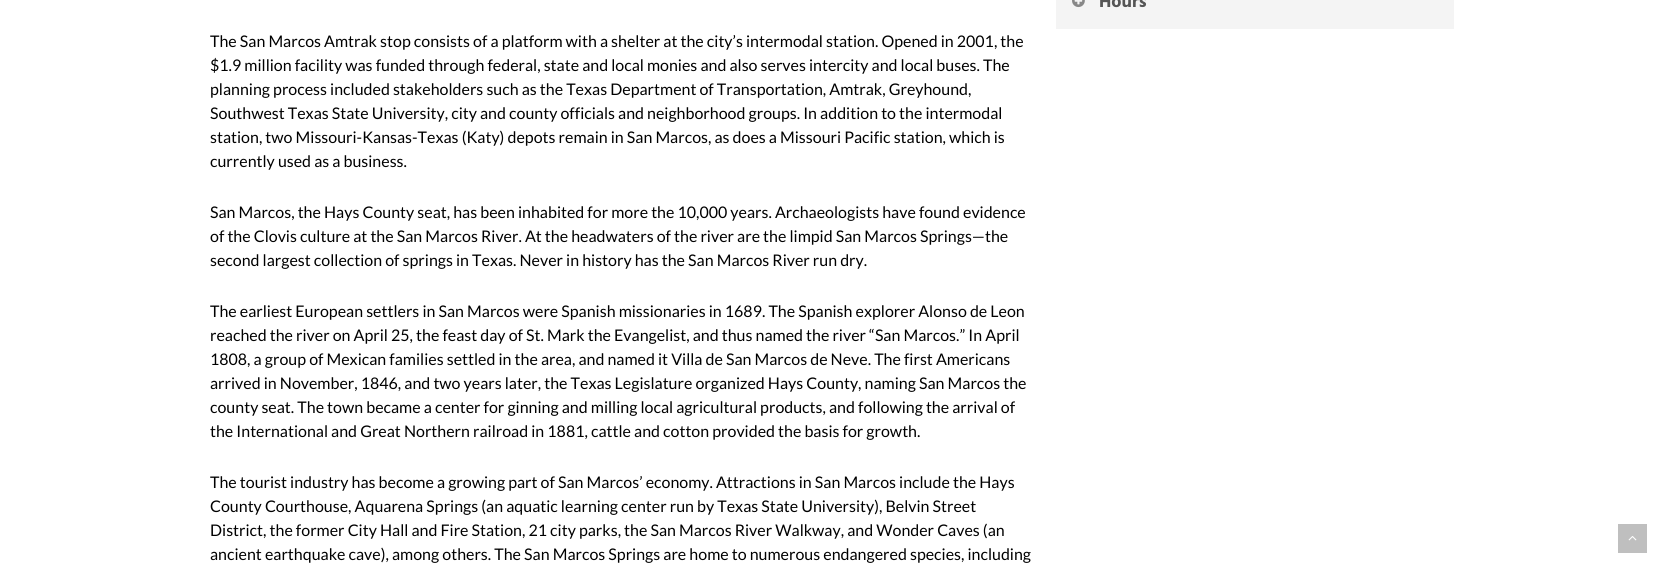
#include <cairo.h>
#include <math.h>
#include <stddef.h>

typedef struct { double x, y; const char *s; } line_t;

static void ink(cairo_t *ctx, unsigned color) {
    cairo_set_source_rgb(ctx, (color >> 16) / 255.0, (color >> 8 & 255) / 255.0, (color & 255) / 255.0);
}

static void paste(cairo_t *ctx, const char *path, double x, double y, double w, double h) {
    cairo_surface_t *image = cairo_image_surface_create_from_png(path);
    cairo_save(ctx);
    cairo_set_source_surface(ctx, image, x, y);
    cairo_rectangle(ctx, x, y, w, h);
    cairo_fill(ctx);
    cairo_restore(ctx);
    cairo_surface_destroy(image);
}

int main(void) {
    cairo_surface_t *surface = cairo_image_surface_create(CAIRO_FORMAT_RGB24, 1664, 567);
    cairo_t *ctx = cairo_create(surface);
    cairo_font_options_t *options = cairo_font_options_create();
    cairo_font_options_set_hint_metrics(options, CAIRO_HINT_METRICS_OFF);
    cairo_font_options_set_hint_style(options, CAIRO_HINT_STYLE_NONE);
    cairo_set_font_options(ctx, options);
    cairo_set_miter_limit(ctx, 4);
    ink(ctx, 0xFFFFFF);
    cairo_paint(ctx);
    ink(ctx, 0xF4F4F4);
    cairo_rectangle(ctx, 1056, 0, 398, 29);
    cairo_fill(ctx);
    paste(ctx, "media/1.png", 1072, 0, 13, 8);
    cairo_select_font_face(ctx, "Hind", CAIRO_FONT_SLANT_NORMAL, CAIRO_FONT_WEIGHT_BOLD);
    cairo_set_font_size(ctx, 18);
    ink(ctx, 0x555555);
    cairo_move_to(ctx, 1099, 7);
    cairo_show_text(ctx, "Hours");
    cairo_select_font_face(ctx, "Lato", CAIRO_FONT_SLANT_NORMAL, CAIRO_FONT_WEIGHT_NORMAL);
    cairo_set_font_size(ctx, 16);
    ink(ctx, 0x000000);
    {
        static const line_t items[] = {
            {210, 47, "The San Marcos Amtrak stop consists of a platform with a shelter at the city’s intermodal station. Opened in 2001, the"},
            {210, 71, "$1.9 million facility was funded through federal, state and local monies and also serves intercity and local buses. The"},
            {210, 95, "planning process included stakeholders such as the Texas Department of Transportation, Amtrak, Greyhound,"},
            {210, 119, "Southwest Texas State University, city and county officials and neighborhood groups. In addition to the intermodal"},
            {210, 143, "station, two Missouri-Kansas-Texas (Katy) depots remain in San Marcos, as does a Missouri Pacific station, which is"},
            {210, 167, "currently used as a business."},
            {210, 218, "San Marcos, the Hays County seat, has been inhabited for more the 10,000 years. Archaeologists have found evidence"},
            {210, 242, "of the Clovis culture at the San Marcos River. At the headwaters of the river are the limpid San Marcos Springs—the"},
            {210, 266, "second largest collection of springs in Texas. Never in history has the San Marcos River run dry."},
            {210, 317, "The earliest European settlers in San Marcos were Spanish missionaries in 1689. The Spanish explorer Alonso de Leon"},
            {210, 341, "reached the river on April 25, the feast day of St. Mark the Evangelist, and thus named the river “San Marcos.” In April"},
            {210, 365, "1808, a group of Mexican families settled in the area, and named it Villa de San Marcos de Neve. The first Americans"},
            {210, 389, "arrived in November, 1846, and two years later, the Texas Legislature organized Hays County, naming San Marcos the"},
            {210, 413, "county seat. The town became a center for ginning and milling local agricultural products, and following the arrival of"},
            {210, 437, "the International and Great Northern railroad in 1881, cattle and cotton provided the basis for growth."},
            {210, 488, "The tourist industry has become a growing part of San Marcos’ economy. Attractions in San Marcos include the Hays"},
            {210, 512, "County Courthouse, Aquarena Springs (an aquatic learning center run by Texas State University), Belvin Street"},
            {210, 536, "District, the former City Hall and Fire Station, 21 city parks, the San Marcos River Walkway, and Wonder Caves (an"},
            {210, 560, "ancient earthquake cave), among others. The San Marcos Springs are home to numerous endangered species, including"},
        };
        for (size_t i = 0; i < sizeof items / sizeof *items; i++) {
            cairo_move_to(ctx, items[i].x, items[i].y);
            cairo_show_text(ctx, items[i].s);
        }
    }
    ink(ctx, 0xBFBFBF);
    cairo_rectangle(ctx, 1618, 524, 29, 29);
    cairo_fill(ctx);
    paste(ctx, "media/2.png", 1628, 536, 9, 5);
    cairo_surface_write_to_png(surface, "image.png");
    cairo_font_options_destroy(options);
    cairo_destroy(ctx);
    cairo_surface_destroy(surface);
    return 0;
}
